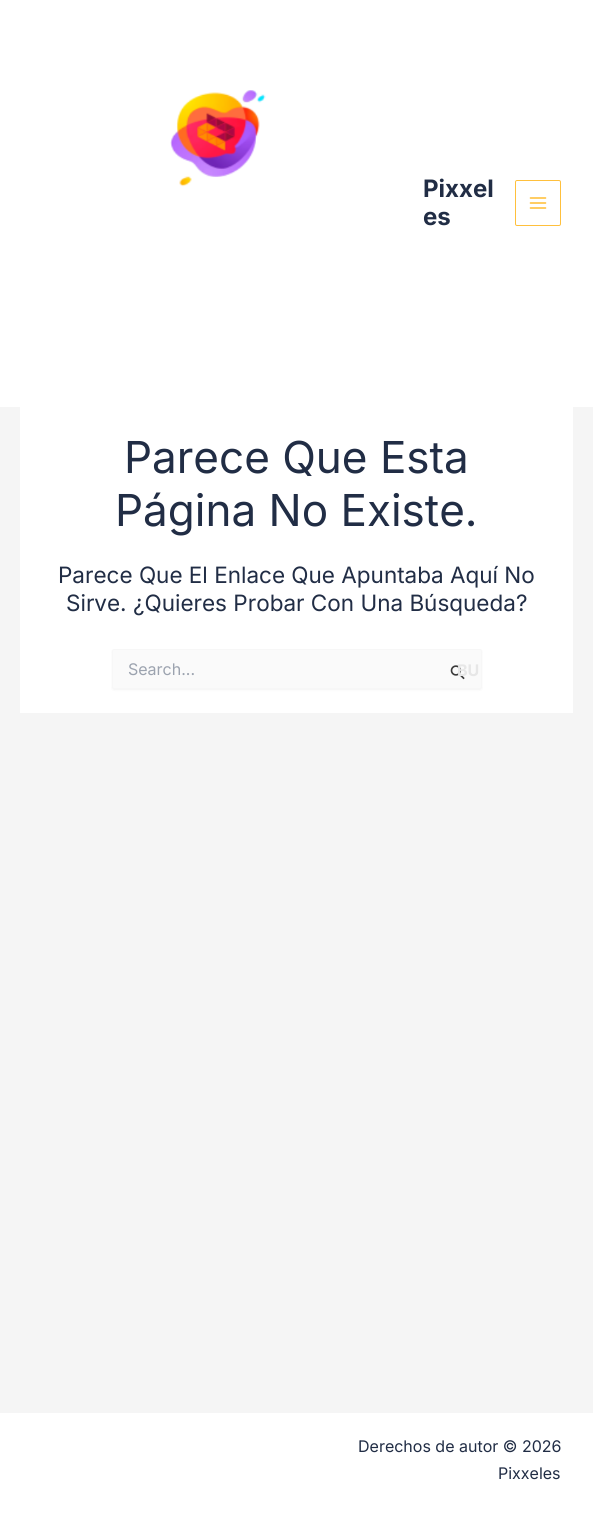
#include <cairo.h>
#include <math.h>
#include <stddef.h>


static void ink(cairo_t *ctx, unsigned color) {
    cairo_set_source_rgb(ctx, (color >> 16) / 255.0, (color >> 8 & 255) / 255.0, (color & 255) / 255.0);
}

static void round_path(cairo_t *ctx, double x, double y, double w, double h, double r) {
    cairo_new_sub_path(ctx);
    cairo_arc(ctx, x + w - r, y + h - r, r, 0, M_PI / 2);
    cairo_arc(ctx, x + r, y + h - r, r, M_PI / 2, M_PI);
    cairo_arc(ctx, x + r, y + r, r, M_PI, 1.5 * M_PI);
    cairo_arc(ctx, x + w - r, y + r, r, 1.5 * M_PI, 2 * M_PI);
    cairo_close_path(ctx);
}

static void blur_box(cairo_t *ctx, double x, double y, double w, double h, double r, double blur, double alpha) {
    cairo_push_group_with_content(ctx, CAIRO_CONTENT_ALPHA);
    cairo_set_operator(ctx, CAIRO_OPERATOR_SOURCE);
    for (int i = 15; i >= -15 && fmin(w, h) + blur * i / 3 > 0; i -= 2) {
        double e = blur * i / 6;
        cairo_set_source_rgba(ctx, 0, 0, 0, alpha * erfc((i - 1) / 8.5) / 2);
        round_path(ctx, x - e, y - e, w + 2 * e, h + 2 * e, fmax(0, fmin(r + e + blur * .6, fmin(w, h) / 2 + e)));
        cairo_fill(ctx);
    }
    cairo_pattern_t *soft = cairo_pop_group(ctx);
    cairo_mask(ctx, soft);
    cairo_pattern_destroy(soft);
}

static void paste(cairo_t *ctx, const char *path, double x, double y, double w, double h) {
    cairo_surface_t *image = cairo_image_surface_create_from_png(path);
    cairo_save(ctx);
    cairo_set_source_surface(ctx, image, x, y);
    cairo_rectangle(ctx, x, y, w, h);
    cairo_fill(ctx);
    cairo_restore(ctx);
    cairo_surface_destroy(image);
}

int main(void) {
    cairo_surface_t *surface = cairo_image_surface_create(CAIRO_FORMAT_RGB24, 593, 1517);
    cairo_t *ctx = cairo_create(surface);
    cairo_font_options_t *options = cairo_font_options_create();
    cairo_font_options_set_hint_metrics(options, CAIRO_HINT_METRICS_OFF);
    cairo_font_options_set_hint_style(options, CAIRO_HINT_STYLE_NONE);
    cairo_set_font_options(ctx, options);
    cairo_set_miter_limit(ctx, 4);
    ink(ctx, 0xF5F5F5);
    cairo_paint(ctx);
    ink(ctx, 0xFFFFFF);
    cairo_rectangle(ctx, 0, 0, 593, 407);
    cairo_fill(ctx);
    paste(ctx, "media/1.png", 170, 90, 96, 97);
    cairo_select_font_face(ctx, "Inter", CAIRO_FONT_SLANT_NORMAL, CAIRO_FONT_WEIGHT_BOLD);
    cairo_set_font_size(ctx, 24);
    ink(ctx, 0x212D45);
    cairo_move_to(ctx, 423, 197);
    cairo_show_text(ctx, "Pixxel");
    cairo_move_to(ctx, 423, 225);
    cairo_show_text(ctx, "es");
    round_path(ctx, 515.5, 180.5, 45, 45, 1.5);
    ink(ctx, 0xFFC03D);
    cairo_set_line_width(ctx, 1);
    cairo_stroke(ctx);
    paste(ctx, "media/2.png", 529, 197, 18, 12);
    ink(ctx, 0xFFFFFF);
    cairo_rectangle(ctx, 20, 407, 553, 306);
    cairo_fill(ctx);
    cairo_select_font_face(ctx, "Inter", CAIRO_FONT_SLANT_NORMAL, CAIRO_FONT_WEIGHT_NORMAL);
    cairo_set_font_size(ctx, 44);
    ink(ctx, 0x212D45);
    cairo_move_to(ctx, 124, 473);
    cairo_show_text(ctx, "Parece Que Esta");
    cairo_move_to(ctx, 115, 526);
    cairo_show_text(ctx, "Página No Existe.");
    cairo_set_font_size(ctx, 22.5);
    cairo_move_to(ctx, 58, 583);
    cairo_show_text(ctx, "Parece Que El Enlace Que Apuntaba Aquí No");
    cairo_move_to(ctx, 66, 611);
    cairo_show_text(ctx, "Sirve. ¿Quieres Probar Con Una Búsqueda?");
    ink(ctx, 0x000000);
    blur_box(ctx, 112, 650, 370, 40, 2, 1, 0.05);
    ink(ctx, 0xFAFAFA);
    round_path(ctx, 112.5, 649.5, 369, 39, 1.5);
    cairo_fill_preserve(ctx);
    ink(ctx, 0xF7F7F7);
    cairo_stroke(ctx);
    cairo_set_font_size(ctx, 16);
    ink(ctx, 0x9CA3AF);
    cairo_move_to(ctx, 128, 675);
    cairo_show_text(ctx, "Search...");
    paste(ctx, "media/3.png", 450, 665, 15, 15);
    cairo_select_font_face(ctx, "Inter", CAIRO_FONT_SLANT_NORMAL, CAIRO_FONT_WEIGHT_BOLD);
    ink(ctx, 0xE7E7E7);
    cairo_move_to(ctx, 457, 676);
    cairo_show_text(ctx, "BU");
    ink(ctx, 0xFFFFFF);
    cairo_rectangle(ctx, 0, 1413, 593, 104);
    cairo_fill(ctx);
    cairo_select_font_face(ctx, "Inter", CAIRO_FONT_SLANT_NORMAL, CAIRO_FONT_WEIGHT_NORMAL);
    ink(ctx, 0x212D45);
    cairo_move_to(ctx, 358, 1452);
    cairo_show_text(ctx, "Derechos de autor © 2026");
    cairo_move_to(ctx, 498, 1479);
    cairo_show_text(ctx, "Pixxeles");
    cairo_surface_write_to_png(surface, "image.png");
    cairo_font_options_destroy(options);
    cairo_destroy(ctx);
    cairo_surface_destroy(surface);
    return 0;
}
